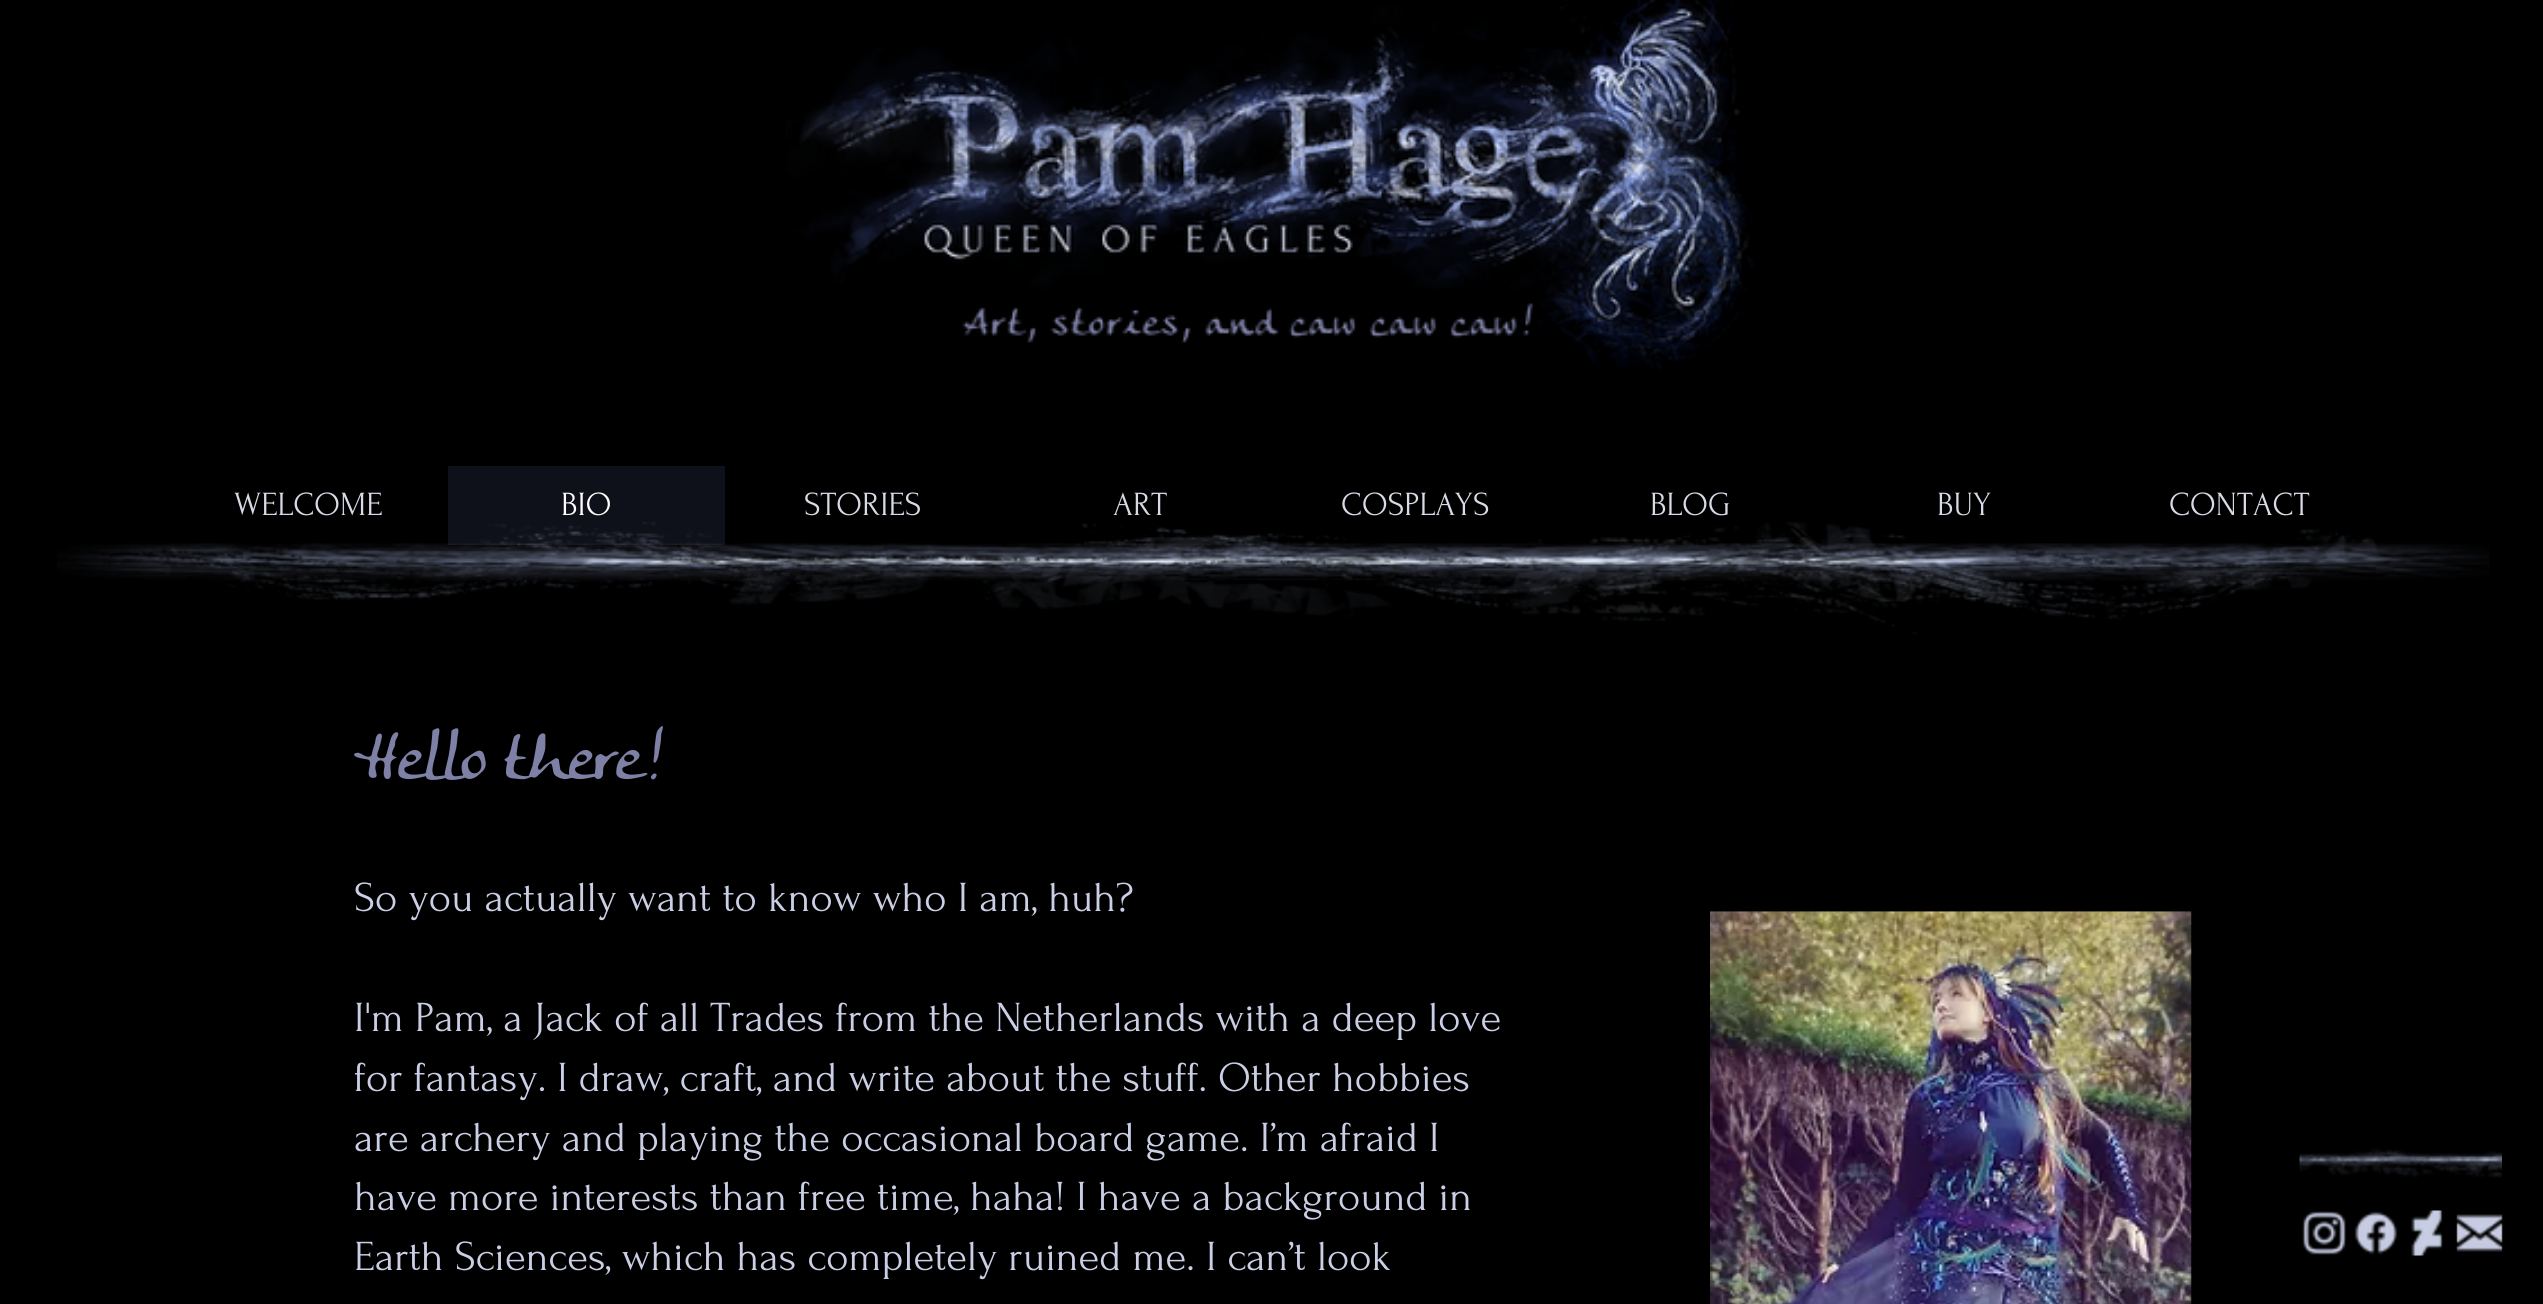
#include <cairo.h>
#include <math.h>
#include <stddef.h>

typedef struct { double x, y; const char *s; } line_t;

static void ink(cairo_t *ctx, unsigned color) {
    cairo_set_source_rgb(ctx, (color >> 16) / 255.0, (color >> 8 & 255) / 255.0, (color & 255) / 255.0);
}

static void paste(cairo_t *ctx, const char *path, double x, double y, double w, double h) {
    cairo_surface_t *image = cairo_image_surface_create_from_png(path);
    cairo_save(ctx);
    cairo_set_source_surface(ctx, image, x, y);
    cairo_rectangle(ctx, x, y, w, h);
    cairo_fill(ctx);
    cairo_restore(ctx);
    cairo_surface_destroy(image);
}

int main(void) {
    cairo_surface_t *surface = cairo_image_surface_create(CAIRO_FORMAT_RGB24, 2543, 1304);
    cairo_t *ctx = cairo_create(surface);
    cairo_font_options_t *options = cairo_font_options_create();
    cairo_font_options_set_hint_metrics(options, CAIRO_HINT_METRICS_OFF);
    cairo_font_options_set_hint_style(options, CAIRO_HINT_STYLE_NONE);
    cairo_set_font_options(ctx, options);
    cairo_set_miter_limit(ctx, 4);
    ink(ctx, 0x000000);
    cairo_paint(ctx);
    paste(ctx, "media/1.png", 786, 0, 969, 370);
    cairo_select_font_face(ctx, "Forum", CAIRO_FONT_SLANT_NORMAL, CAIRO_FONT_WEIGHT_NORMAL);
    cairo_set_font_size(ctx, 33.75);
    ink(ctx, 0xD8DBE6);
    cairo_move_to(ctx, 234, 515);
    cairo_show_text(ctx, "WELCOME");
    ink(ctx, 0x0F111A);
    cairo_rectangle(ctx, 448, 466, 277, 79);
    cairo_fill(ctx);
    ink(ctx, 0xFFFFFF);
    cairo_move_to(ctx, 561, 515);
    cairo_show_text(ctx, "BIO");
    ink(ctx, 0xD8DBE6);
    {
        static const line_t items[] = {
            {804, 515, "STORIES"},
            {1113, 515, "ART"},
            {1341, 515, "COSPLAYS"},
            {1650, 515, "BLOG"},
            {1937, 515, "BUY"},
            {2169, 515, "CONTACT"},
        };
        for (size_t i = 0; i < sizeof items / sizeof *items; i++) {
            cairo_move_to(ctx, items[i].x, items[i].y);
            cairo_show_text(ctx, items[i].s);
        }
    }
    paste(ctx, "media/2.png", 57, 522, 2433, 112);
    cairo_set_source_rgba(ctx, 0, 0, 0, 0.25);
    cairo_rectangle(ctx, 171, 567, 2205, 59);
    cairo_fill(ctx);
    cairo_select_font_face(ctx, "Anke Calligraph", CAIRO_FONT_SLANT_NORMAL, CAIRO_FONT_WEIGHT_NORMAL);
    cairo_set_font_size(ctx, 63);
    ink(ctx, 0x7E80A6);
    cairo_move_to(ctx, 354, 779);
    cairo_show_text(ctx, "Hello there!");
    cairo_select_font_face(ctx, "Forum", CAIRO_FONT_SLANT_NORMAL, CAIRO_FONT_WEIGHT_NORMAL);
    cairo_set_font_size(ctx, 42.75);
    ink(ctx, 0xCACFE6);
    {
        static const line_t items[] = {
            {354, 911, "So you actually want to know who I am, huh?"},
            {354, 1031, "I'm Pam, a Jack of all Trades from the Netherlands with a deep love"},
            {354, 1091, "for fantasy. I draw, craft, and write about the stuff. Other hobbies"},
            {354, 1151, "are archery and playing the occasional board game. I’m afraid I"},
            {354, 1210, "have more interests than free time, haha! I have a background in"},
            {354, 1270, "Earth Sciences, which has completely ruined me. I can’t look"},
        };
        for (size_t i = 0; i < sizeof items / sizeof *items; i++) {
            cairo_move_to(ctx, items[i].x, items[i].y);
            cairo_show_text(ctx, items[i].s);
        }
    }
    paste(ctx, "media/3.png", 1710, 911, 482, 393);
    paste(ctx, "media/4.png", 2299, 1148, 203, 30);
    paste(ctx, "media/5.png", 2302, 1211, 44, 44);
    paste(ctx, "media/6.png", 2354, 1211, 44, 44);
    paste(ctx, "media/7.png", 2411, 1210, 32, 46);
    paste(ctx, "media/8.png", 2456, 1214, 47, 38);
    cairo_surface_write_to_png(surface, "image.png");
    cairo_font_options_destroy(options);
    cairo_destroy(ctx);
    cairo_surface_destroy(surface);
    return 0;
}
